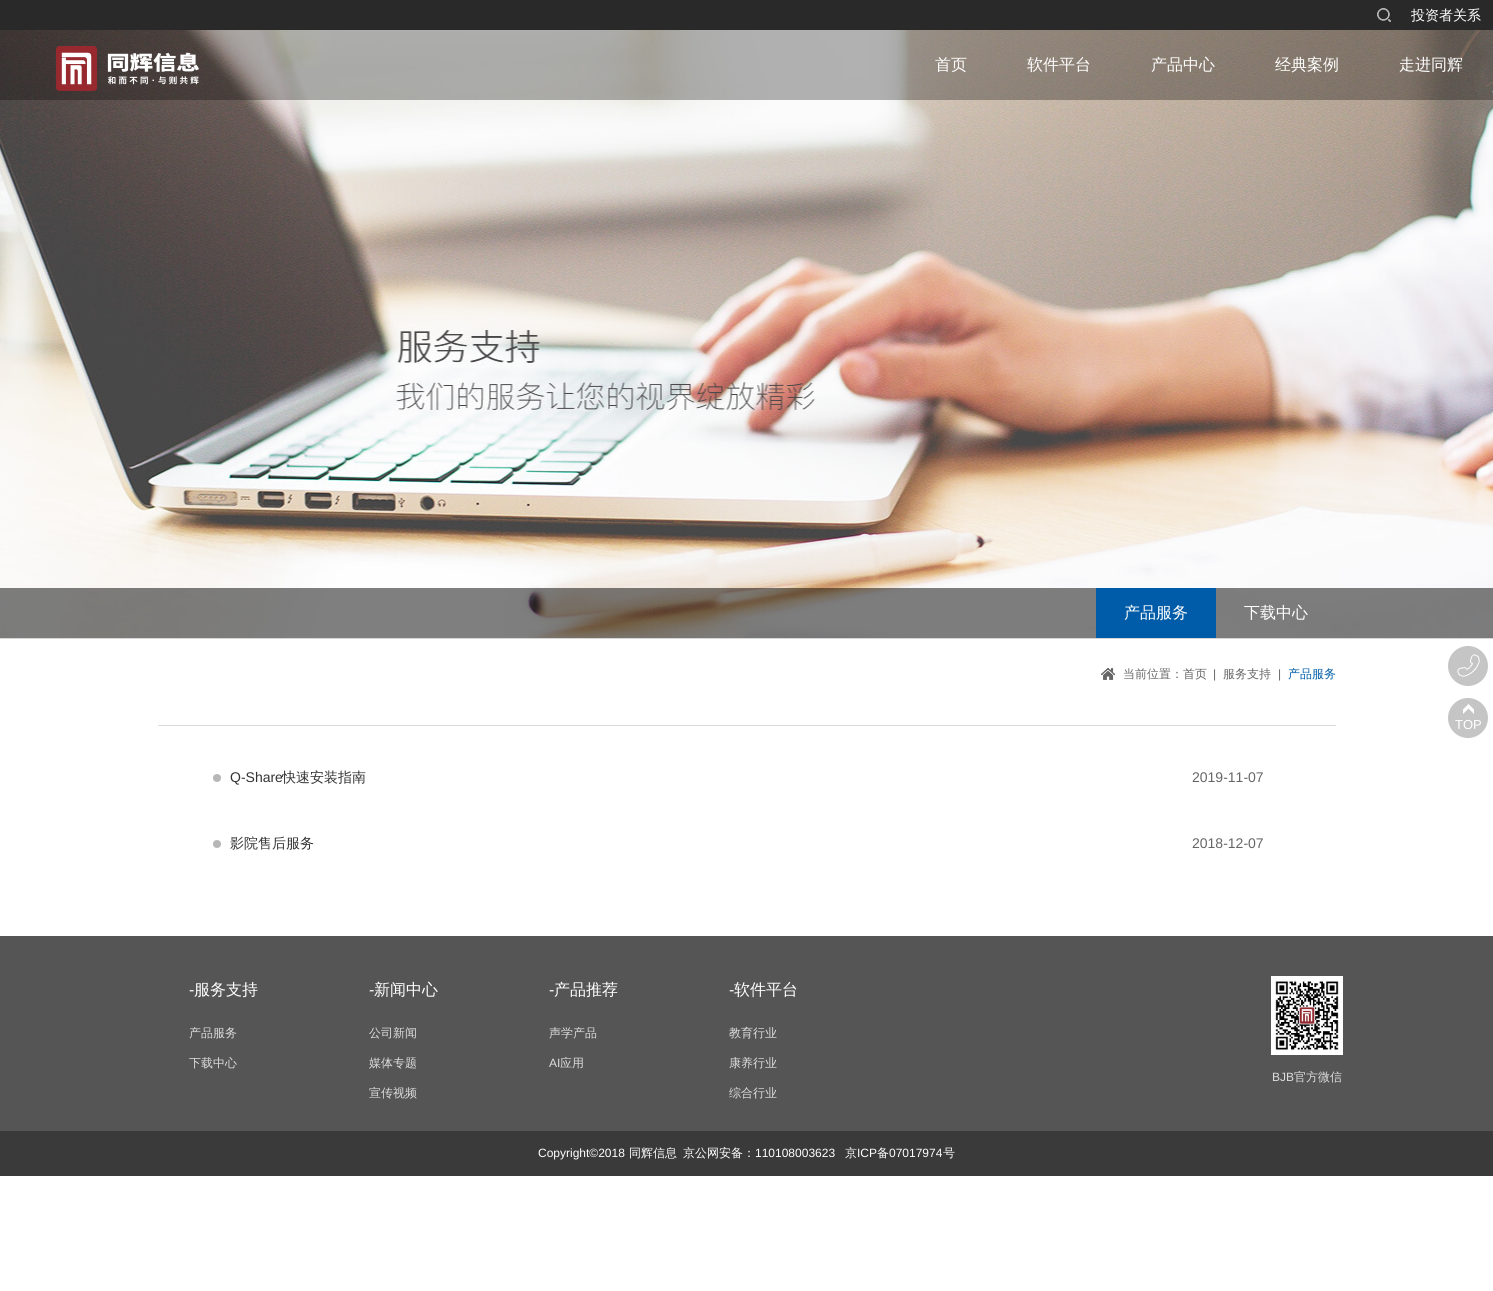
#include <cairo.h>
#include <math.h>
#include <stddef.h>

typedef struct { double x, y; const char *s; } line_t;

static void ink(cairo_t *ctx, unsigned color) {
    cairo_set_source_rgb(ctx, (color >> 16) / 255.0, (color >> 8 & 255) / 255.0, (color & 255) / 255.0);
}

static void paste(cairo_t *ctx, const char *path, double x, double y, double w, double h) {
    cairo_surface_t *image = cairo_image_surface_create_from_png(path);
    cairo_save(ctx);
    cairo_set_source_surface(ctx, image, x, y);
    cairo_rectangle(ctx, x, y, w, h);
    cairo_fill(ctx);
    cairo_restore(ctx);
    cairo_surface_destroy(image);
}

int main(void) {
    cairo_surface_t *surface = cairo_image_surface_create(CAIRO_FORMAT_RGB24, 1493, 1291);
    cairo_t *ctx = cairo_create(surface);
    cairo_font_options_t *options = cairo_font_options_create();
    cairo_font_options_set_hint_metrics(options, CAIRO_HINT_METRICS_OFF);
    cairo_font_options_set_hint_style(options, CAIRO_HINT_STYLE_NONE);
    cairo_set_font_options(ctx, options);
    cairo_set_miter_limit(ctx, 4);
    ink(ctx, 0xFFFFFF);
    cairo_paint(ctx);
    ink(ctx, 0x292929);
    cairo_rectangle(ctx, 0, 0, 1493, 30);
    cairo_fill(ctx);
    paste(ctx, "media/1.png", 1377, 8, 14, 14);
    cairo_select_font_face(ctx, "WenQuanYi Zen Hei Medium", CAIRO_FONT_SLANT_NORMAL, CAIRO_FONT_WEIGHT_NORMAL);
    cairo_set_font_size(ctx, 14);
    ink(ctx, 0xFFFFFF);
    cairo_move_to(ctx, 1411, 20);
    cairo_show_text(ctx, "投资者关系");
    paste(ctx, "media/3.png", 0, 30, 1493, 608);
    cairo_set_source_rgba(ctx, 0, 0, 0, 0.3);
    cairo_rectangle(ctx, 0, 30, 1493, 70);
    cairo_fill(ctx);
    paste(ctx, "media/2.png", 56, 46, 143, 45);
    cairo_set_font_size(ctx, 16);
    ink(ctx, 0xFFFFFF);
    {
        static const line_t items[] = {
            {935, 70, "首页"},
            {1027, 70, "软件平台"},
            {1151, 70, "产品中心"},
            {1275, 70, "经典案例"},
            {1399, 70, "走进同辉"},
        };
        for (size_t i = 0; i < sizeof items / sizeof *items; i++) {
            cairo_move_to(ctx, items[i].x, items[i].y);
            cairo_show_text(ctx, items[i].s);
        }
    }
    cairo_set_source_rgba(ctx, 0, 0, 0, 0.5);
    cairo_rectangle(ctx, 0, 588, 1493, 50);
    cairo_fill(ctx);
    ink(ctx, 0x005CA8);
    cairo_rectangle(ctx, 1096, 588, 120, 50);
    cairo_fill(ctx);
    ink(ctx, 0xFFFFFF);
    cairo_move_to(ctx, 1124, 618);
    cairo_show_text(ctx, "产品服务");
    cairo_move_to(ctx, 1244, 618);
    cairo_show_text(ctx, "下载中心");
    ink(ctx, 0xD6D6D6);
    cairo_rectangle(ctx, 0, 638, 1493, 1);
    cairo_fill(ctx);
    paste(ctx, "media/4.png", 1101, 668, 14, 12);
    cairo_set_font_size(ctx, 12);
    ink(ctx, 0x666666);
    cairo_move_to(ctx, 1123, 678);
    cairo_show_text(ctx, "当前位置：首页");
    cairo_select_font_face(ctx, "Liberation Sans", CAIRO_FONT_SLANT_NORMAL, CAIRO_FONT_WEIGHT_NORMAL);
    cairo_move_to(ctx, 1213, 678);
    cairo_show_text(ctx, "|");
    cairo_select_font_face(ctx, "WenQuanYi Zen Hei Medium", CAIRO_FONT_SLANT_NORMAL, CAIRO_FONT_WEIGHT_NORMAL);
    cairo_move_to(ctx, 1223, 678);
    cairo_show_text(ctx, "服务支持");
    cairo_select_font_face(ctx, "Liberation Sans", CAIRO_FONT_SLANT_NORMAL, CAIRO_FONT_WEIGHT_NORMAL);
    cairo_move_to(ctx, 1278, 678);
    cairo_show_text(ctx, "|");
    cairo_select_font_face(ctx, "WenQuanYi Zen Hei Medium", CAIRO_FONT_SLANT_NORMAL, CAIRO_FONT_WEIGHT_NORMAL);
    ink(ctx, 0x005CA8);
    cairo_move_to(ctx, 1288, 678);
    cairo_show_text(ctx, "产品服务");
    ink(ctx, 0xDCDCDC);
    cairo_rectangle(ctx, 158, 725, 1178, 1);
    cairo_fill(ctx);
    ink(ctx, 0xB7B7B7);
    cairo_arc(ctx, 217, 778, 4, 0, 2 * M_PI);
    cairo_fill(ctx);
    cairo_select_font_face(ctx, "Liberation Sans", CAIRO_FONT_SLANT_NORMAL, CAIRO_FONT_WEIGHT_NORMAL);
    cairo_set_font_size(ctx, 14);
    ink(ctx, 0x333333);
    cairo_move_to(ctx, 230, 782);
    cairo_show_text(ctx, "Q-Share");
    cairo_select_font_face(ctx, "WenQuanYi Zen Hei Medium", CAIRO_FONT_SLANT_NORMAL, CAIRO_FONT_WEIGHT_NORMAL);
    cairo_move_to(ctx, 282, 782);
    cairo_show_text(ctx, "快速安装指南");
    cairo_select_font_face(ctx, "Liberation Sans", CAIRO_FONT_SLANT_NORMAL, CAIRO_FONT_WEIGHT_NORMAL);
    ink(ctx, 0x666666);
    cairo_move_to(ctx, 1192, 782);
    cairo_show_text(ctx, "2019-11-07");
    ink(ctx, 0xB7B7B7);
    cairo_new_path(ctx);
    cairo_arc(ctx, 217, 844, 4, 0, 2 * M_PI);
    cairo_fill(ctx);
    cairo_select_font_face(ctx, "WenQuanYi Zen Hei Medium", CAIRO_FONT_SLANT_NORMAL, CAIRO_FONT_WEIGHT_NORMAL);
    ink(ctx, 0x333333);
    cairo_move_to(ctx, 230, 848);
    cairo_show_text(ctx, "影院售后服务");
    cairo_select_font_face(ctx, "Liberation Sans", CAIRO_FONT_SLANT_NORMAL, CAIRO_FONT_WEIGHT_NORMAL);
    ink(ctx, 0x666666);
    cairo_move_to(ctx, 1192, 848);
    cairo_show_text(ctx, "2018-12-07");
    ink(ctx, 0xC6C5C6);
    cairo_new_path(ctx);
    cairo_arc(ctx, 1468, 666, 20, 0, 2 * M_PI);
    cairo_fill(ctx);
    paste(ctx, "media/5.png", 1457, 654, 23, 23);
    cairo_arc(ctx, 1468, 718, 20, 0, 2 * M_PI);
    cairo_fill(ctx);
    paste(ctx, "media/6.png", 1463, 704, 11, 10);
    cairo_set_font_size(ctx, 13);
    ink(ctx, 0xFFFFFF);
    cairo_move_to(ctx, 1455, 729);
    cairo_show_text(ctx, "TOP");
    ink(ctx, 0x555555);
    cairo_rectangle(ctx, 0, 936, 1493, 195);
    cairo_fill(ctx);
    cairo_set_font_size(ctx, 16);
    ink(ctx, 0xFFFFFF);
    cairo_move_to(ctx, 189, 995);
    cairo_show_text(ctx, "-");
    cairo_select_font_face(ctx, "WenQuanYi Zen Hei Medium", CAIRO_FONT_SLANT_NORMAL, CAIRO_FONT_WEIGHT_NORMAL);
    cairo_move_to(ctx, 194, 995);
    cairo_show_text(ctx, "服务支持");
    cairo_set_font_size(ctx, 12);
    ink(ctx, 0xDDDDDD);
    cairo_move_to(ctx, 189, 1037);
    cairo_show_text(ctx, "产品服务");
    cairo_move_to(ctx, 189, 1067);
    cairo_show_text(ctx, "下载中心");
    cairo_select_font_face(ctx, "Liberation Sans", CAIRO_FONT_SLANT_NORMAL, CAIRO_FONT_WEIGHT_NORMAL);
    cairo_set_font_size(ctx, 16);
    ink(ctx, 0xFFFFFF);
    cairo_move_to(ctx, 369, 995);
    cairo_show_text(ctx, "-");
    cairo_select_font_face(ctx, "WenQuanYi Zen Hei Medium", CAIRO_FONT_SLANT_NORMAL, CAIRO_FONT_WEIGHT_NORMAL);
    cairo_move_to(ctx, 374, 995);
    cairo_show_text(ctx, "新闻中心");
    cairo_set_font_size(ctx, 12);
    ink(ctx, 0xDDDDDD);
    {
        static const line_t items[] = {
            {369, 1037, "公司新闻"},
            {369, 1067, "媒体专题"},
            {369, 1097, "宣传视频"},
        };
        for (size_t i = 0; i < sizeof items / sizeof *items; i++) {
            cairo_move_to(ctx, items[i].x, items[i].y);
            cairo_show_text(ctx, items[i].s);
        }
    }
    cairo_select_font_face(ctx, "Liberation Sans", CAIRO_FONT_SLANT_NORMAL, CAIRO_FONT_WEIGHT_NORMAL);
    cairo_set_font_size(ctx, 16);
    ink(ctx, 0xFFFFFF);
    cairo_move_to(ctx, 549, 995);
    cairo_show_text(ctx, "-");
    cairo_select_font_face(ctx, "WenQuanYi Zen Hei Medium", CAIRO_FONT_SLANT_NORMAL, CAIRO_FONT_WEIGHT_NORMAL);
    cairo_move_to(ctx, 554, 995);
    cairo_show_text(ctx, "产品推荐");
    cairo_set_font_size(ctx, 12);
    ink(ctx, 0xDDDDDD);
    cairo_move_to(ctx, 549, 1037);
    cairo_show_text(ctx, "声学产品");
    cairo_select_font_face(ctx, "Liberation Sans", CAIRO_FONT_SLANT_NORMAL, CAIRO_FONT_WEIGHT_NORMAL);
    cairo_move_to(ctx, 549, 1067);
    cairo_show_text(ctx, "AI");
    cairo_select_font_face(ctx, "WenQuanYi Zen Hei Medium", CAIRO_FONT_SLANT_NORMAL, CAIRO_FONT_WEIGHT_NORMAL);
    cairo_move_to(ctx, 560, 1067);
    cairo_show_text(ctx, "应用");
    cairo_select_font_face(ctx, "Liberation Sans", CAIRO_FONT_SLANT_NORMAL, CAIRO_FONT_WEIGHT_NORMAL);
    cairo_set_font_size(ctx, 16);
    ink(ctx, 0xFFFFFF);
    cairo_move_to(ctx, 729, 995);
    cairo_show_text(ctx, "-");
    cairo_select_font_face(ctx, "WenQuanYi Zen Hei Medium", CAIRO_FONT_SLANT_NORMAL, CAIRO_FONT_WEIGHT_NORMAL);
    cairo_move_to(ctx, 734, 995);
    cairo_show_text(ctx, "软件平台");
    cairo_set_font_size(ctx, 12);
    ink(ctx, 0xDDDDDD);
    {
        static const line_t items[] = {
            {729, 1037, "教育行业"},
            {729, 1067, "康养行业"},
            {729, 1097, "综合行业"},
        };
        for (size_t i = 0; i < sizeof items / sizeof *items; i++) {
            cairo_move_to(ctx, items[i].x, items[i].y);
            cairo_show_text(ctx, items[i].s);
        }
    }
    paste(ctx, "media/7.png", 1271, 976, 72, 79);
    cairo_select_font_face(ctx, "Liberation Sans", CAIRO_FONT_SLANT_NORMAL, CAIRO_FONT_WEIGHT_NORMAL);
    cairo_move_to(ctx, 1272, 1081);
    cairo_show_text(ctx, "BJB");
    cairo_select_font_face(ctx, "WenQuanYi Zen Hei Medium", CAIRO_FONT_SLANT_NORMAL, CAIRO_FONT_WEIGHT_NORMAL);
    cairo_move_to(ctx, 1294, 1081);
    cairo_show_text(ctx, "官方微信");
    ink(ctx, 0x3A3A3A);
    cairo_rectangle(ctx, 0, 1131, 1493, 45);
    cairo_fill(ctx);
    cairo_select_font_face(ctx, "Liberation Sans", CAIRO_FONT_SLANT_NORMAL, CAIRO_FONT_WEIGHT_NORMAL);
    ink(ctx, 0xFFFFFF);
    cairo_move_to(ctx, 538, 1157);
    cairo_show_text(ctx, "Copyright©2018");
    cairo_select_font_face(ctx, "WenQuanYi Zen Hei Medium", CAIRO_FONT_SLANT_NORMAL, CAIRO_FONT_WEIGHT_NORMAL);
    cairo_move_to(ctx, 629, 1157);
    cairo_show_text(ctx, "同辉信息");
    cairo_move_to(ctx, 683, 1157);
    cairo_show_text(ctx, "京公网安备：");
    cairo_select_font_face(ctx, "Liberation Sans", CAIRO_FONT_SLANT_NORMAL, CAIRO_FONT_WEIGHT_NORMAL);
    cairo_move_to(ctx, 755, 1157);
    cairo_show_text(ctx, "110108003623");
    cairo_select_font_face(ctx, "WenQuanYi Zen Hei Medium", CAIRO_FONT_SLANT_NORMAL, CAIRO_FONT_WEIGHT_NORMAL);
    cairo_move_to(ctx, 845, 1157);
    cairo_show_text(ctx, "京");
    cairo_select_font_face(ctx, "Liberation Sans", CAIRO_FONT_SLANT_NORMAL, CAIRO_FONT_WEIGHT_NORMAL);
    cairo_move_to(ctx, 857, 1157);
    cairo_show_text(ctx, "ICP");
    cairo_select_font_face(ctx, "WenQuanYi Zen Hei Medium", CAIRO_FONT_SLANT_NORMAL, CAIRO_FONT_WEIGHT_NORMAL);
    cairo_move_to(ctx, 877, 1157);
    cairo_show_text(ctx, "备");
    cairo_select_font_face(ctx, "Liberation Sans", CAIRO_FONT_SLANT_NORMAL, CAIRO_FONT_WEIGHT_NORMAL);
    cairo_move_to(ctx, 889, 1157);
    cairo_show_text(ctx, "07017974");
    cairo_select_font_face(ctx, "WenQuanYi Zen Hei Medium", CAIRO_FONT_SLANT_NORMAL, CAIRO_FONT_WEIGHT_NORMAL);
    cairo_move_to(ctx, 943, 1157);
    cairo_show_text(ctx, "号");
    cairo_surface_write_to_png(surface, "image.png");
    cairo_font_options_destroy(options);
    cairo_destroy(ctx);
    cairo_surface_destroy(surface);
    return 0;
}
